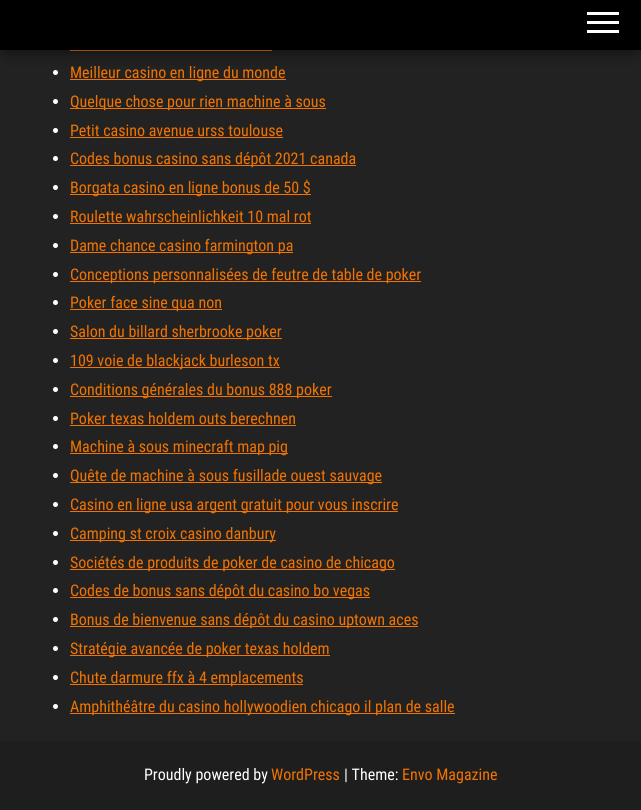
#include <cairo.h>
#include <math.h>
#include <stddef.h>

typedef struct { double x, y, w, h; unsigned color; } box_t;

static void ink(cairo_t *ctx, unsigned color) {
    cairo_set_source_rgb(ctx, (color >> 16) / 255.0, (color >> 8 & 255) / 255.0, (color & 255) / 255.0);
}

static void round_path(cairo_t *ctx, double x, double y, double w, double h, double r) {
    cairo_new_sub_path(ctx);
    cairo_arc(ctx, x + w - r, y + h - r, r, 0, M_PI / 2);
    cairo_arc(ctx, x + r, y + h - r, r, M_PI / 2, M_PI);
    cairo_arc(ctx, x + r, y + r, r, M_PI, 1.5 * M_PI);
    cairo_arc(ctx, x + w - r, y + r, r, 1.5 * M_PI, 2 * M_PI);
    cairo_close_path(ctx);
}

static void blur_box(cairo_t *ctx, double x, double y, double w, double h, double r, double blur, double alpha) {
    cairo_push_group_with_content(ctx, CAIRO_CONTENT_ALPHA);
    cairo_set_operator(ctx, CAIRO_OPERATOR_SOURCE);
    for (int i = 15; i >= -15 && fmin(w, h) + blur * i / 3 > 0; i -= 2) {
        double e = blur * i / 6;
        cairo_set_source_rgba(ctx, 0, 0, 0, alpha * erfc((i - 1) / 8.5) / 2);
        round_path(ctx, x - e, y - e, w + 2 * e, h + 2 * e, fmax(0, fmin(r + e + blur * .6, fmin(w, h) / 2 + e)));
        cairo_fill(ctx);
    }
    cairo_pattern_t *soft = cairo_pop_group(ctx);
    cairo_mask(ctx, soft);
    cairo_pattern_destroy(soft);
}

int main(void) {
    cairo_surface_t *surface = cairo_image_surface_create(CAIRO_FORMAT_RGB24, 641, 810);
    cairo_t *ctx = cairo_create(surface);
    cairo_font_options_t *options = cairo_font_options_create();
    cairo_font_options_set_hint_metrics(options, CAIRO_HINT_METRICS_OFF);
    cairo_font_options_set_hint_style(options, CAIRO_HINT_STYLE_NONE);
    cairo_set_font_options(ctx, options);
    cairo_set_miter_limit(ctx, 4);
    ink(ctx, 0x222222);
    cairo_paint(ctx);
    ink(ctx, 0xF27300);
    cairo_rectangle(ctx, 70, 50, 202, 1);
    cairo_fill(ctx);
    ink(ctx, 0x000000);
    blur_box(ctx, 5, 13, 631, 40, 0, 5, 0.2);
    ink(ctx, 0xFFFFFF);
    cairo_arc(ctx, 55.5, 72.5, 2.5, 0, 2 * M_PI);
    cairo_fill(ctx);
    ink(ctx, 0xF27300);
    cairo_rectangle(ctx, 70, 79, 216, 1);
    cairo_fill(ctx);
    ink(ctx, 0x000000);
    blur_box(ctx, 0, 3, 641, 50, 0, 10, 0.12);
    blur_box(ctx, 12, 22, 617, 26, 0, 10, 0.42);
    {
        static const box_t items[] = {
            {0, 0, 641, 50, 0x000000},
            {587, 12, 32, 3, 0xFFFFFF},
            {587, 21, 32, 3, 0xFFFFFF},
            {587, 30, 32, 3, 0xFFFFFF},
        };
        for (size_t i = 0; i < sizeof items / sizeof *items; i++) {
            ink(ctx, items[i].color);
            cairo_rectangle(ctx, items[i].x, items[i].y, items[i].w, items[i].h);
            cairo_fill(ctx);
        }
    }
    cairo_select_font_face(ctx, "Roboto Condensed", CAIRO_FONT_SLANT_NORMAL, CAIRO_FONT_WEIGHT_NORMAL);
    cairo_set_font_size(ctx, 16);
    ink(ctx, 0xF27300);
    cairo_move_to(ctx, 70, 78);
    cairo_show_text(ctx, "Meilleur casino en ligne du monde");
    ink(ctx, 0xFFFFFF);
    cairo_new_path(ctx);
    cairo_arc(ctx, 55.5, 101.5, 2.5, 0, 2 * M_PI);
    cairo_fill(ctx);
    ink(ctx, 0xF27300);
    cairo_rectangle(ctx, 70, 108, 256, 1);
    cairo_fill(ctx);
    cairo_move_to(ctx, 70, 107);
    cairo_show_text(ctx, "Quelque chose pour rien machine à sous");
    ink(ctx, 0xFFFFFF);
    cairo_new_path(ctx);
    cairo_arc(ctx, 55.5, 130.5, 2.5, 0, 2 * M_PI);
    cairo_fill(ctx);
    ink(ctx, 0xF27300);
    cairo_move_to(ctx, 70, 136);
    cairo_show_text(ctx, "Petit casino avenue urss toulouse");
    cairo_rectangle(ctx, 70, 137, 213, 1);
    cairo_fill(ctx);
    ink(ctx, 0xFFFFFF);
    cairo_arc(ctx, 55.5, 158.5, 2.5, 0, 2 * M_PI);
    cairo_fill(ctx);
    ink(ctx, 0xF27300);
    cairo_rectangle(ctx, 70, 165, 286, 1);
    cairo_fill(ctx);
    cairo_move_to(ctx, 70, 164);
    cairo_show_text(ctx, "Codes bonus casino sans dépôt 2021 canada");
    ink(ctx, 0xFFFFFF);
    cairo_new_path(ctx);
    cairo_arc(ctx, 55.5, 187.5, 2.5, 0, 2 * M_PI);
    cairo_fill(ctx);
    ink(ctx, 0xF27300);
    cairo_rectangle(ctx, 70, 194, 241, 1);
    cairo_fill(ctx);
    cairo_move_to(ctx, 70, 193);
    cairo_show_text(ctx, "Borgata casino en ligne bonus de 50 $");
    ink(ctx, 0xFFFFFF);
    cairo_new_path(ctx);
    cairo_arc(ctx, 55.5, 216.5, 2.5, 0, 2 * M_PI);
    cairo_fill(ctx);
    ink(ctx, 0xF27300);
    cairo_move_to(ctx, 70, 222);
    cairo_show_text(ctx, "Roulette wahrscheinlichkeit 10 mal rot");
    cairo_rectangle(ctx, 70, 223, 241, 1);
    cairo_fill(ctx);
    ink(ctx, 0xFFFFFF);
    cairo_arc(ctx, 55.5, 245.5, 2.5, 0, 2 * M_PI);
    cairo_fill(ctx);
    ink(ctx, 0xF27300);
    cairo_rectangle(ctx, 70, 252, 223, 1);
    cairo_fill(ctx);
    cairo_move_to(ctx, 70, 251);
    cairo_show_text(ctx, "Dame chance casino farmington pa");
    ink(ctx, 0xFFFFFF);
    cairo_new_path(ctx);
    cairo_arc(ctx, 55.5, 274.5, 2.5, 0, 2 * M_PI);
    cairo_fill(ctx);
    ink(ctx, 0xF27300);
    cairo_rectangle(ctx, 70, 281, 351, 1);
    cairo_fill(ctx);
    cairo_move_to(ctx, 70, 280);
    cairo_show_text(ctx, "Conceptions personnalisées de feutre de table de poker");
    ink(ctx, 0xFFFFFF);
    cairo_new_path(ctx);
    cairo_arc(ctx, 55.5, 302.5, 2.5, 0, 2 * M_PI);
    cairo_fill(ctx);
    ink(ctx, 0xF27300);
    cairo_rectangle(ctx, 70, 309, 152, 1);
    cairo_fill(ctx);
    cairo_move_to(ctx, 70, 308);
    cairo_show_text(ctx, "Poker face sine qua non");
    ink(ctx, 0xFFFFFF);
    cairo_new_path(ctx);
    cairo_arc(ctx, 55.5, 331.5, 2.5, 0, 2 * M_PI);
    cairo_fill(ctx);
    ink(ctx, 0xF27300);
    cairo_rectangle(ctx, 70, 338, 212, 1);
    cairo_fill(ctx);
    cairo_move_to(ctx, 70, 337);
    cairo_show_text(ctx, "Salon du billard sherbrooke poker");
    ink(ctx, 0xFFFFFF);
    cairo_new_path(ctx);
    cairo_arc(ctx, 55.5, 360.5, 2.5, 0, 2 * M_PI);
    cairo_fill(ctx);
    ink(ctx, 0xF27300);
    cairo_rectangle(ctx, 70, 367, 210, 1);
    cairo_fill(ctx);
    cairo_move_to(ctx, 70, 366);
    cairo_show_text(ctx, "109 voie de blackjack burleson tx");
    ink(ctx, 0xFFFFFF);
    cairo_new_path(ctx);
    cairo_arc(ctx, 55.5, 389.5, 2.5, 0, 2 * M_PI);
    cairo_fill(ctx);
    ink(ctx, 0xF27300);
    cairo_rectangle(ctx, 70, 396, 262, 1);
    cairo_fill(ctx);
    cairo_move_to(ctx, 70, 395);
    cairo_show_text(ctx, "Conditions générales du bonus 888 poker");
    ink(ctx, 0xFFFFFF);
    cairo_new_path(ctx);
    cairo_arc(ctx, 55.5, 418.5, 2.5, 0, 2 * M_PI);
    cairo_fill(ctx);
    ink(ctx, 0xF27300);
    cairo_move_to(ctx, 70, 424);
    cairo_show_text(ctx, "Poker texas holdem outs berechnen");
    cairo_rectangle(ctx, 70, 425, 226, 1);
    cairo_fill(ctx);
    ink(ctx, 0xFFFFFF);
    cairo_arc(ctx, 55.5, 446.5, 2.5, 0, 2 * M_PI);
    cairo_fill(ctx);
    ink(ctx, 0xF27300);
    cairo_rectangle(ctx, 70, 453, 218, 1);
    cairo_fill(ctx);
    cairo_move_to(ctx, 70, 452);
    cairo_show_text(ctx, "Machine à sous minecraft map pig");
    ink(ctx, 0xFFFFFF);
    cairo_new_path(ctx);
    cairo_arc(ctx, 55.5, 475.5, 2.5, 0, 2 * M_PI);
    cairo_fill(ctx);
    ink(ctx, 0xF27300);
    cairo_rectangle(ctx, 70, 482, 312, 1);
    cairo_fill(ctx);
    cairo_move_to(ctx, 70, 481);
    cairo_show_text(ctx, "Quête de machine à sous fusillade ouest sauvage");
    ink(ctx, 0xFFFFFF);
    cairo_new_path(ctx);
    cairo_arc(ctx, 55.5, 504.5, 2.5, 0, 2 * M_PI);
    cairo_fill(ctx);
    ink(ctx, 0xF27300);
    cairo_rectangle(ctx, 70, 511, 328, 1);
    cairo_fill(ctx);
    cairo_move_to(ctx, 70, 510);
    cairo_show_text(ctx, "Casino en ligne usa argent gratuit pour vous inscrire");
    ink(ctx, 0xFFFFFF);
    cairo_new_path(ctx);
    cairo_arc(ctx, 55.5, 533.5, 2.5, 0, 2 * M_PI);
    cairo_fill(ctx);
    ink(ctx, 0xF27300);
    cairo_rectangle(ctx, 70, 540, 206, 1);
    cairo_fill(ctx);
    cairo_move_to(ctx, 70, 539);
    cairo_show_text(ctx, "Camping st croix casino danbury");
    ink(ctx, 0xFFFFFF);
    cairo_new_path(ctx);
    cairo_arc(ctx, 55.5, 562.5, 2.5, 0, 2 * M_PI);
    cairo_fill(ctx);
    ink(ctx, 0xF27300);
    cairo_rectangle(ctx, 70, 569, 325, 1);
    cairo_fill(ctx);
    cairo_move_to(ctx, 70, 568);
    cairo_show_text(ctx, "Sociétés de produits de poker de casino de chicago");
    ink(ctx, 0xFFFFFF);
    cairo_new_path(ctx);
    cairo_arc(ctx, 55.5, 590.5, 2.5, 0, 2 * M_PI);
    cairo_fill(ctx);
    ink(ctx, 0xF27300);
    cairo_rectangle(ctx, 70, 597, 300, 1);
    cairo_fill(ctx);
    cairo_move_to(ctx, 70, 596);
    cairo_show_text(ctx, "Codes de bonus sans dépôt du casino bo vegas");
    ink(ctx, 0xFFFFFF);
    cairo_new_path(ctx);
    cairo_arc(ctx, 55.5, 619.5, 2.5, 0, 2 * M_PI);
    cairo_fill(ctx);
    ink(ctx, 0xF27300);
    cairo_rectangle(ctx, 70, 626, 348, 1);
    cairo_fill(ctx);
    cairo_move_to(ctx, 70, 625);
    cairo_show_text(ctx, "Bonus de bienvenue sans dépôt du casino uptown aces");
    ink(ctx, 0xFFFFFF);
    cairo_new_path(ctx);
    cairo_arc(ctx, 55.5, 648.5, 2.5, 0, 2 * M_PI);
    cairo_fill(ctx);
    ink(ctx, 0xF27300);
    cairo_rectangle(ctx, 70, 655, 260, 1);
    cairo_fill(ctx);
    cairo_move_to(ctx, 70, 654);
    cairo_show_text(ctx, "Stratégie avancée de poker texas holdem");
    ink(ctx, 0xFFFFFF);
    cairo_new_path(ctx);
    cairo_arc(ctx, 55.5, 677.5, 2.5, 0, 2 * M_PI);
    cairo_fill(ctx);
    ink(ctx, 0xF27300);
    cairo_rectangle(ctx, 70, 684, 233, 1);
    cairo_fill(ctx);
    cairo_move_to(ctx, 70, 683);
    cairo_show_text(ctx, "Chute darmure ffx à 4 emplacements");
    ink(ctx, 0xFFFFFF);
    cairo_new_path(ctx);
    cairo_arc(ctx, 55.5, 706.5, 2.5, 0, 2 * M_PI);
    cairo_fill(ctx);
    ink(ctx, 0xF27300);
    cairo_rectangle(ctx, 70, 713, 385, 1);
    cairo_fill(ctx);
    cairo_move_to(ctx, 70, 712);
    cairo_show_text(ctx, "Amphithéâtre du casino hollywoodien chicago il plan de salle");
    ink(ctx, 0x1E1E1E);
    cairo_rectangle(ctx, 0, 741, 641, 69);
    cairo_fill(ctx);
    ink(ctx, 0xFFFFFF);
    cairo_move_to(ctx, 144, 780);
    cairo_show_text(ctx, "Proudly powered by");
    ink(ctx, 0xF27300);
    cairo_move_to(ctx, 271, 780);
    cairo_show_text(ctx, "WordPress");
    ink(ctx, 0xFFFFFF);
    cairo_move_to(ctx, 344, 780);
    cairo_show_text(ctx, "| Theme:");
    ink(ctx, 0xF27300);
    cairo_move_to(ctx, 402, 780);
    cairo_show_text(ctx, "Envo Magazine");
    cairo_surface_write_to_png(surface, "image.png");
    cairo_font_options_destroy(options);
    cairo_destroy(ctx);
    cairo_surface_destroy(surface);
    return 0;
}
